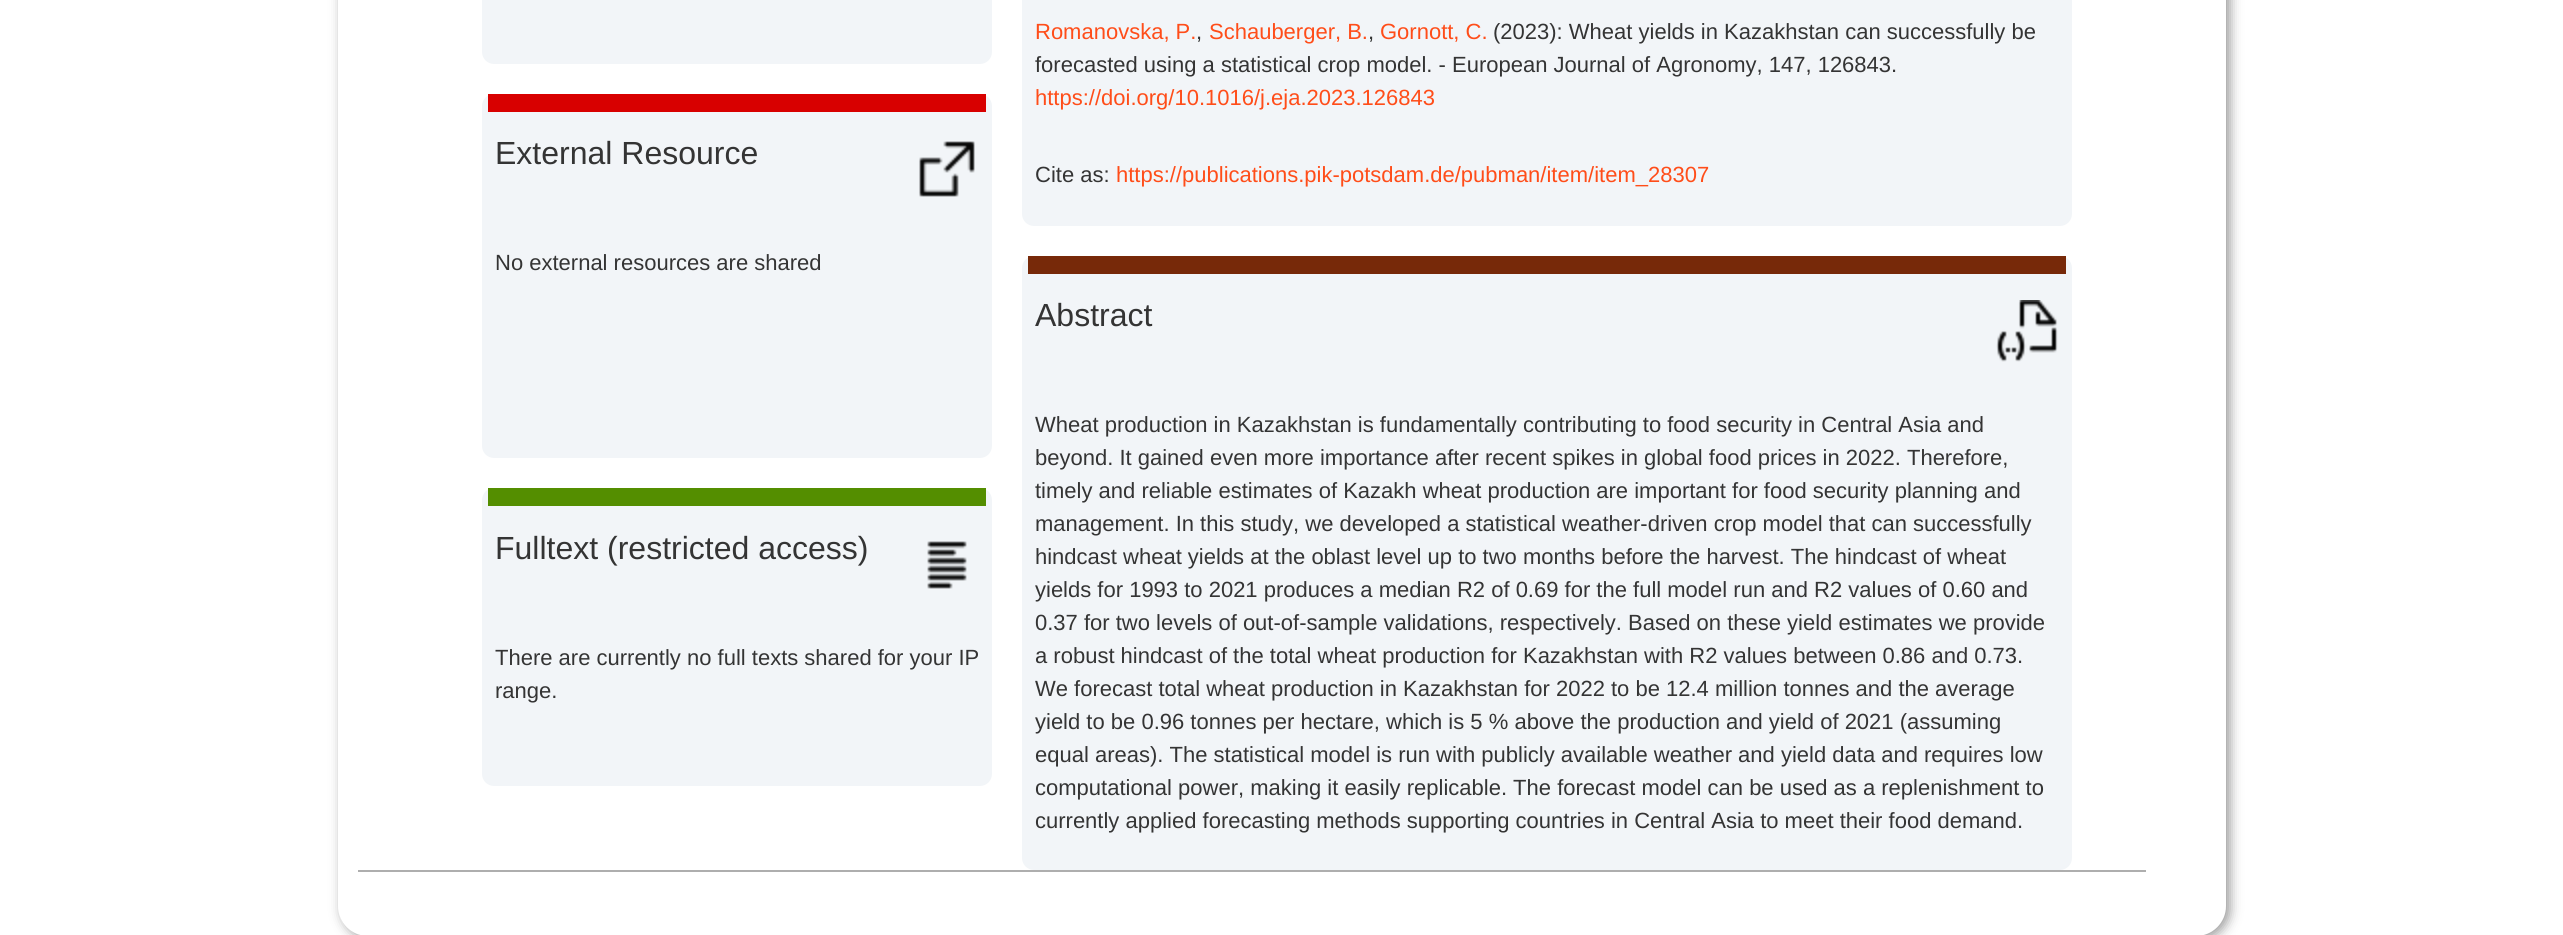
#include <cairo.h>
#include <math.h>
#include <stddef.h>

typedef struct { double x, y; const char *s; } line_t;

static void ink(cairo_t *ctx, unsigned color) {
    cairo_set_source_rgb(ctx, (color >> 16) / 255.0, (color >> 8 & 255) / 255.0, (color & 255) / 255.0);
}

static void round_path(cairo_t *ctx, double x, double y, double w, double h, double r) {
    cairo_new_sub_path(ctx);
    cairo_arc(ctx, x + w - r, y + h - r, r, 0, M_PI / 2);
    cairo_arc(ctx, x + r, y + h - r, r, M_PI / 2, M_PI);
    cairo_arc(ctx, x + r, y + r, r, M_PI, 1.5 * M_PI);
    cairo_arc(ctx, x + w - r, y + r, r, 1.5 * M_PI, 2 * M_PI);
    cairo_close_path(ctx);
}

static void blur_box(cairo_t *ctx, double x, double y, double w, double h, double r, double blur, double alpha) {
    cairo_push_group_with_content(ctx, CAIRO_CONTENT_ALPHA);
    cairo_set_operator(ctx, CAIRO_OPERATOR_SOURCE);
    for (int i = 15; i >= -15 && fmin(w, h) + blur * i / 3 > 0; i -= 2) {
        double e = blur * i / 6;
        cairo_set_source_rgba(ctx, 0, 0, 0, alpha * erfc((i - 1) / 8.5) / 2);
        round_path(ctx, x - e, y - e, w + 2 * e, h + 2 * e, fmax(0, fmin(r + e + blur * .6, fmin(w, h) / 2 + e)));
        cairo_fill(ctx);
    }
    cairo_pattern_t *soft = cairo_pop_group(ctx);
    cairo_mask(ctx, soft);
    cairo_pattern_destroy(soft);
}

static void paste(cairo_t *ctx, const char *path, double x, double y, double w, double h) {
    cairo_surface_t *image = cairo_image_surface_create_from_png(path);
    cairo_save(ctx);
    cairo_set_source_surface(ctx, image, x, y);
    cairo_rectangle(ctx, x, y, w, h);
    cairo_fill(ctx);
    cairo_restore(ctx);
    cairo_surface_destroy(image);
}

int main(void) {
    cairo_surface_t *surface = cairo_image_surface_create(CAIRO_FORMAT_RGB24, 2563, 935);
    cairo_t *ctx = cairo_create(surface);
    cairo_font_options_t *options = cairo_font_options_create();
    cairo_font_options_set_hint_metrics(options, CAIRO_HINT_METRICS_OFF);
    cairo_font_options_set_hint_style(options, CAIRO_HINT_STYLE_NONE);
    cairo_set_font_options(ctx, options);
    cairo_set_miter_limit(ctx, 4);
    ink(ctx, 0xFFFFFF);
    cairo_paint(ctx);
    ink(ctx, 0x999999);
    blur_box(ctx, 342, -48, 1888, 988, 30, 6, 1);
    ink(ctx, 0xFFFFFF);
    round_path(ctx, 338, -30, 1888, 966, 30);
    cairo_fill(ctx);
    ink(ctx, 0xAEAEAE);
    cairo_rectangle(ctx, 358, 870, 1788, 2);
    cairo_fill(ctx);
    ink(ctx, 0xF2F5F8);
    round_path(ctx, 482, -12, 510, 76, 12);
    cairo_fill(ctx);
    round_path(ctx, 482, 94, 510, 364, 12);
    cairo_fill(ctx);
    ink(ctx, 0xD80000);
    cairo_rectangle(ctx, 488, 94, 498, 18);
    cairo_fill(ctx);
    cairo_select_font_face(ctx, "Liberation Sans", CAIRO_FONT_SLANT_NORMAL, CAIRO_FONT_WEIGHT_NORMAL);
    cairo_set_font_size(ctx, 32);
    ink(ctx, 0x343434);
    cairo_move_to(ctx, 495, 164);
    cairo_show_text(ctx, "External Resource");
    paste(ctx, "media/1.png", 919, 141, 56, 56);
    cairo_set_font_size(ctx, 22);
    cairo_move_to(ctx, 495, 270);
    cairo_show_text(ctx, "No external resources are shared");
    ink(ctx, 0xF2F5F8);
    round_path(ctx, 482, 488, 510, 298, 12);
    cairo_fill(ctx);
    ink(ctx, 0x548E00);
    cairo_rectangle(ctx, 488, 488, 498, 18);
    cairo_fill(ctx);
    cairo_set_font_size(ctx, 32);
    ink(ctx, 0x343434);
    cairo_move_to(ctx, 495, 559);
    cairo_show_text(ctx, "Fulltext (restricted access)");
    paste(ctx, "media/2.png", 927, 541, 40, 48);
    cairo_set_font_size(ctx, 22);
    cairo_move_to(ctx, 495, 665);
    cairo_show_text(ctx, "There are currently no full texts shared for your IP");
    cairo_move_to(ctx, 495, 698);
    cairo_show_text(ctx, "range.");
    ink(ctx, 0xF2F5F8);
    round_path(ctx, 1022, -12, 1050, 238, 12);
    cairo_fill(ctx);
    ink(ctx, 0xFF4D19);
    cairo_move_to(ctx, 1035, 39);
    cairo_show_text(ctx, "Romanovska, P.");
    ink(ctx, 0x343434);
    cairo_move_to(ctx, 1196, 39);
    cairo_show_text(ctx, ",");
    ink(ctx, 0xFF4D19);
    cairo_move_to(ctx, 1209, 39);
    cairo_show_text(ctx, "Schauberger, B.");
    ink(ctx, 0x343434);
    cairo_move_to(ctx, 1368, 39);
    cairo_show_text(ctx, ",");
    ink(ctx, 0xFF4D19);
    cairo_move_to(ctx, 1380, 39);
    cairo_show_text(ctx, "Gornott, C.");
    ink(ctx, 0x343434);
    cairo_move_to(ctx, 1493, 39);
    cairo_show_text(ctx, "(2023): Wheat yields in Kazakhstan can successfully be");
    cairo_move_to(ctx, 1035, 72);
    cairo_show_text(ctx, "forecasted using a statistical crop model. - European Journal of Agronomy, 147, 126843.");
    ink(ctx, 0xFF4D19);
    cairo_move_to(ctx, 1035, 105);
    cairo_show_text(ctx, "https://doi.org/10.1016/j.eja.2023.126843");
    ink(ctx, 0x343434);
    cairo_move_to(ctx, 1035, 182);
    cairo_show_text(ctx, "Cite as:");
    ink(ctx, 0xFF4D19);
    cairo_move_to(ctx, 1116, 182);
    cairo_show_text(ctx, "https://publications.pik-potsdam.de/pubman/item/item_28307");
    ink(ctx, 0xF2F5F8);
    round_path(ctx, 1022, 256, 1050, 614, 12);
    cairo_fill(ctx);
    ink(ctx, 0x772909);
    cairo_rectangle(ctx, 1028, 256, 1038, 18);
    cairo_fill(ctx);
    cairo_set_font_size(ctx, 32);
    ink(ctx, 0x343434);
    cairo_move_to(ctx, 1035, 326);
    cairo_show_text(ctx, "Abstract");
    paste(ctx, "media/3.png", 1996, 300, 62, 62);
    cairo_set_font_size(ctx, 22);
    {
        static const line_t items[] = {
            {1035, 432, "Wheat production in Kazakhstan is fundamentally contributing to food security in Central Asia and"},
            {1035, 465, "beyond. It gained even more importance after recent spikes in global food prices in 2022. Therefore,"},
            {1035, 498, "timely and reliable estimates of Kazakh wheat production are important for food security planning and"},
            {1035, 531, "management. In this study, we developed a statistical weather-driven crop model that can successfully"},
            {1035, 564, "hindcast wheat yields at the oblast level up to two months before the harvest. The hindcast of wheat"},
            {1035, 597, "yields for 1993 to 2021 produces a median R2 of 0.69 for the full model run and R2 values of 0.60 and"},
            {1035, 630, "0.37 for two levels of out-of-sample validations, respectively. Based on these yield estimates we provide"},
            {1035, 663, "a robust hindcast of the total wheat production for Kazakhstan with R2 values between 0.86 and 0.73."},
            {1035, 696, "We forecast total wheat production in Kazakhstan for 2022 to be 12.4 million tonnes and the average"},
            {1035, 729, "yield to be 0.96 tonnes per hectare, which is 5 % above the production and yield of 2021 (assuming"},
            {1035, 762, "equal areas). The statistical model is run with publicly available weather and yield data and requires low"},
            {1035, 795, "computational power, making it easily replicable. The forecast model can be used as a replenishment to"},
            {1035, 828, "currently applied forecasting methods supporting countries in Central Asia to meet their food demand."},
        };
        for (size_t i = 0; i < sizeof items / sizeof *items; i++) {
            cairo_move_to(ctx, items[i].x, items[i].y);
            cairo_show_text(ctx, items[i].s);
        }
    }
    cairo_surface_write_to_png(surface, "image.png");
    cairo_font_options_destroy(options);
    cairo_destroy(ctx);
    cairo_surface_destroy(surface);
    return 0;
}
